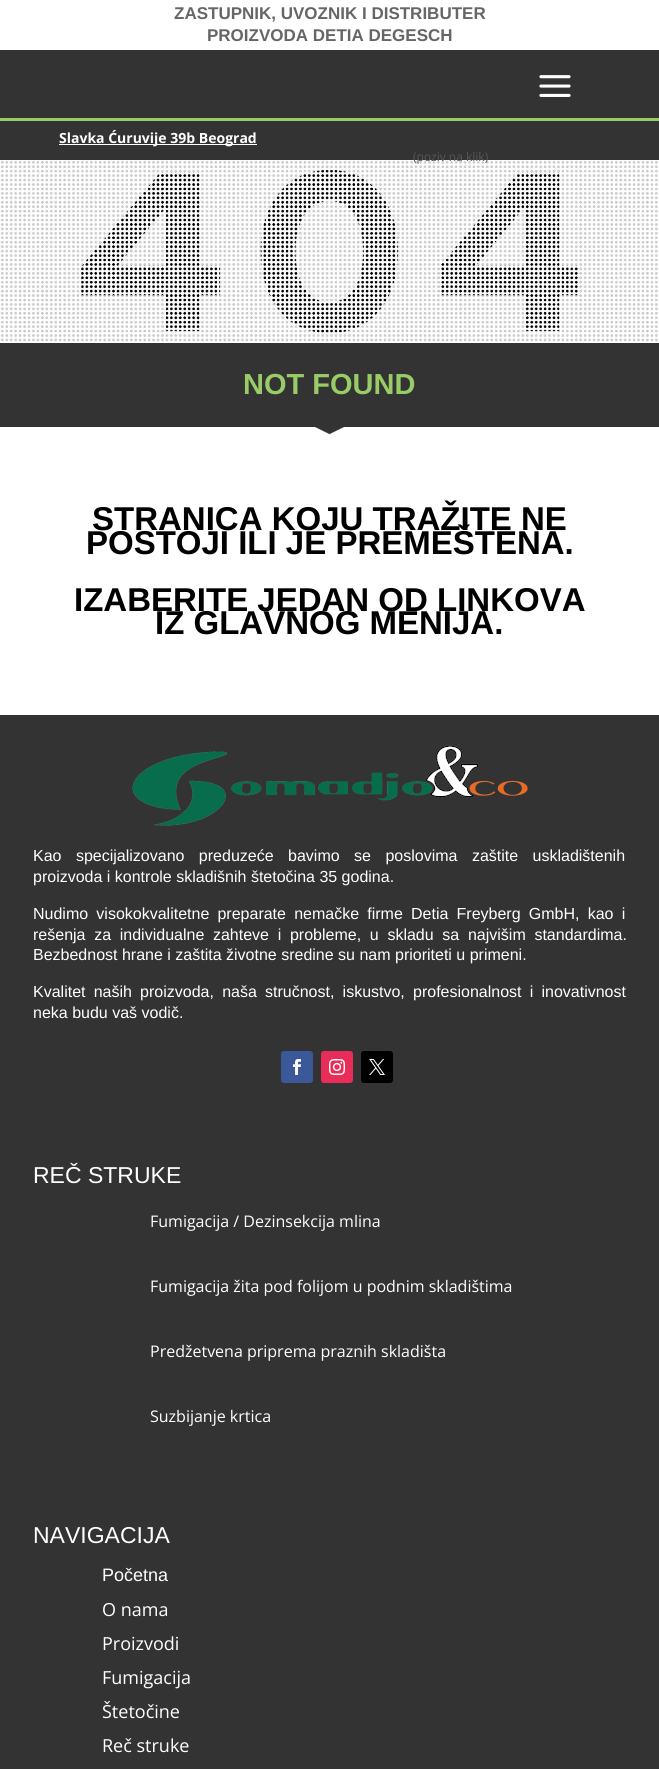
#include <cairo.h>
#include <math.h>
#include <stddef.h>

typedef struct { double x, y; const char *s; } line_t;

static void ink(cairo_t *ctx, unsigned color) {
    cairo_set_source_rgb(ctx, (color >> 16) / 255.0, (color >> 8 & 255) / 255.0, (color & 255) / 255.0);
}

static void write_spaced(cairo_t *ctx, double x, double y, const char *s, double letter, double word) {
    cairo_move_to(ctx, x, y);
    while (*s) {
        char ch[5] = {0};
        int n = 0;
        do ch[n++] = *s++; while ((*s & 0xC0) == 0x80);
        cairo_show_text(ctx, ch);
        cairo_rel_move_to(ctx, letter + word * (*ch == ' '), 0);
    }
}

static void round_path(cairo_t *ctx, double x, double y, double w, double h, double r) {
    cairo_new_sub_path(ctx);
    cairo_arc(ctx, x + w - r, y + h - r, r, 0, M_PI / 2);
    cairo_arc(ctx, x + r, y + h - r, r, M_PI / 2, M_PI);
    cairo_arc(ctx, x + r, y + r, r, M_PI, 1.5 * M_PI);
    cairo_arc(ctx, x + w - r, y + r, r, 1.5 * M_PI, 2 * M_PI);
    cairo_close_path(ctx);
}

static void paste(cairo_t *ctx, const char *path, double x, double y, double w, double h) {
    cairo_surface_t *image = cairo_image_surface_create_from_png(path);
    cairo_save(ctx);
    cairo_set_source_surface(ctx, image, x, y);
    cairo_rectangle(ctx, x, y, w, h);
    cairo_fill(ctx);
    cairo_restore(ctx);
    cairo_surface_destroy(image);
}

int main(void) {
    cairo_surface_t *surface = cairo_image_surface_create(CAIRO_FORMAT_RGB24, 659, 1769);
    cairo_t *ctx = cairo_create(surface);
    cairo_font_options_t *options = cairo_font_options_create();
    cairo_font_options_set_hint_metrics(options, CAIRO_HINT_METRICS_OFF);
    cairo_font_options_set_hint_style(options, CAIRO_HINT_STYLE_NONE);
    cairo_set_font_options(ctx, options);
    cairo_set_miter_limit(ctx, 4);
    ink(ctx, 0xFFFFFF);
    cairo_paint(ctx);
    cairo_select_font_face(ctx, "Liberation Sans", CAIRO_FONT_SLANT_NORMAL, CAIRO_FONT_WEIGHT_BOLD);
    cairo_set_font_size(ctx, 17);
    ink(ctx, 0x666666);
    cairo_move_to(ctx, 174, 19);
    cairo_show_text(ctx, "ZASTUPNIK, UVOZNIK I DISTRIBUTER");
    cairo_move_to(ctx, 207, 41);
    cairo_show_text(ctx, "PROIZVODA DETIA DEGESCH");
    ink(ctx, 0x333333);
    cairo_rectangle(ctx, 0, 50, 659, 110);
    cairo_fill(ctx);
    ink(ctx, 0x99CC66);
    cairo_rectangle(ctx, 0, 118, 659, 3);
    cairo_fill(ctx);
    paste(ctx, "media/1.png", 539, 75, 32, 22);
    ink(ctx, 0xFFFFFF);
    cairo_rectangle(ctx, 59, 144, 198, 1);
    cairo_fill(ctx);
    cairo_select_font_face(ctx, "Open Sans", CAIRO_FONT_SLANT_NORMAL, CAIRO_FONT_WEIGHT_BOLD);
    cairo_set_font_size(ctx, 14);
    cairo_move_to(ctx, 59, 143);
    cairo_show_text(ctx, "Slavka Ćuruvije 39b Beograd");
    paste(ctx, "media/2.png", 0, 160, 659, 182);
    cairo_select_font_face(ctx, "Open Sans", CAIRO_FONT_SLANT_NORMAL, CAIRO_FONT_WEIGHT_NORMAL);
    cairo_set_font_size(ctx, 12);
    ink(ctx, 0x565656);
    cairo_move_to(ctx, 413, 161);
    cairo_show_text(ctx, "(poziv na klik)");
    ink(ctx, 0x333333);
    cairo_rectangle(ctx, 0, 343, 659, 84);
    cairo_fill(ctx);
    cairo_select_font_face(ctx, "Liberation Sans", CAIRO_FONT_SLANT_NORMAL, CAIRO_FONT_WEIGHT_BOLD);
    cairo_set_font_size(ctx, 29);
    ink(ctx, 0x99CC66);
    cairo_move_to(ctx, 243, 394);
    cairo_show_text(ctx, "NOT FOUND");
    paste(ctx, "media/3.png", 315, 427, 29, 8);
    cairo_set_font_size(ctx, 33);
    ink(ctx, 0x000000);
    {
        static const line_t items[] = {
            {92, 530, "STRANICA KOJU TRAŽITE NE"},
            {86, 554, "POSTOJI ILI JE PREMEŠTENA."},
            {74, 611, "IZABERITE JEDAN OD LINKOVA"},
            {155, 634, "IZ GLAVNOG MENIJA."},
        };
        for (size_t i = 0; i < sizeof items / sizeof *items; i++) {
            cairo_move_to(ctx, items[i].x, items[i].y);
            cairo_show_text(ctx, items[i].s);
        }
    }
    ink(ctx, 0x333333);
    cairo_rectangle(ctx, 0, 715, 659, 1054);
    cairo_fill(ctx);
    paste(ctx, "media/4.png", 132, 745, 396, 81);
    cairo_select_font_face(ctx, "Liberation Sans", CAIRO_FONT_SLANT_NORMAL, CAIRO_FONT_WEIGHT_NORMAL);
    cairo_set_font_size(ctx, 16);
    ink(ctx, 0xFFFFFF);
    write_spaced(ctx, 33, 861, "Kao specijalizovano preduzeće bavimo se poslovima zaštite uskladištenih", 0, 10);
    cairo_move_to(ctx, 33, 882);
    cairo_show_text(ctx, "proizvoda i kontrole skladišnih štetočina 35 godina.");
    write_spaced(ctx, 33, 919, "Nudimo visokokvalitetne preparate nemačke firme Detia Freyberg GmbH, kao i", 0, 3.75);
    write_spaced(ctx, 33, 940, "rešenja za individualne zahteve i probleme, u skladu sa najvišim standardima.", 0, 4.25);
    cairo_move_to(ctx, 33, 960);
    cairo_show_text(ctx, "Bezbednost hrane i zaštita životne sredine su nam prioriteti u primeni.");
    write_spaced(ctx, 33, 997, "Kvalitet naših proizvoda, naša stručnost, iskustvo, profesionalnost i inovativnost", 0, 3.75);
    cairo_move_to(ctx, 33, 1018);
    cairo_show_text(ctx, "neka budu vaš vodič.");
    ink(ctx, 0x3B5998);
    round_path(ctx, 281, 1051, 32, 32, 3);
    cairo_fill(ctx);
    paste(ctx, "media/5.png", 293, 1059, 8, 16);
    ink(ctx, 0xEA2C59);
    round_path(ctx, 321, 1051, 32, 32, 3);
    cairo_fill(ctx);
    paste(ctx, "media/6.png", 329, 1059, 16, 16);
    ink(ctx, 0x000000);
    round_path(ctx, 361, 1051, 32, 32, 3);
    cairo_fill(ctx);
    paste(ctx, "media/7.png", 369, 1059, 16, 16);
    cairo_set_font_size(ctx, 23);
    ink(ctx, 0xFFFFFF);
    cairo_move_to(ctx, 33, 1183);
    cairo_show_text(ctx, "REČ STRUKE");
    cairo_select_font_face(ctx, "Open Sans", CAIRO_FONT_SLANT_NORMAL, CAIRO_FONT_WEIGHT_NORMAL);
    cairo_set_font_size(ctx, 16);
    {
        static const line_t items[] = {
            {150, 1227, "Fumigacija / Dezinsekcija mlina"},
            {150, 1292, "Fumigacija žita pod folijom u podnim skladištima"},
            {150, 1357, "Predžetvena priprema praznih skladišta"},
            {150, 1422, "Suzbijanje krtica"},
        };
        for (size_t i = 0; i < sizeof items / sizeof *items; i++) {
            cairo_move_to(ctx, items[i].x, items[i].y);
            cairo_show_text(ctx, items[i].s);
        }
    }
    cairo_select_font_face(ctx, "Liberation Sans", CAIRO_FONT_SLANT_NORMAL, CAIRO_FONT_WEIGHT_NORMAL);
    cairo_set_font_size(ctx, 23);
    cairo_move_to(ctx, 33, 1543);
    cairo_show_text(ctx, "NAVIGACIJA");
    cairo_set_font_size(ctx, 18);
    cairo_move_to(ctx, 102, 1581);
    cairo_show_text(ctx, "Početna");
    cairo_select_font_face(ctx, "Open Sans", CAIRO_FONT_SLANT_NORMAL, CAIRO_FONT_WEIGHT_NORMAL);
    {
        static const line_t items[] = {
            {102, 1616, "O nama"},
            {102, 1650, "Proizvodi"},
            {102, 1684, "Fumigacija"},
            {102, 1718, "Štetočine"},
            {102, 1752, "Reč struke"},
        };
        for (size_t i = 0; i < sizeof items / sizeof *items; i++) {
            cairo_move_to(ctx, items[i].x, items[i].y);
            cairo_show_text(ctx, items[i].s);
        }
    }
    cairo_surface_write_to_png(surface, "image.png");
    cairo_font_options_destroy(options);
    cairo_destroy(ctx);
    cairo_surface_destroy(surface);
    return 0;
}
